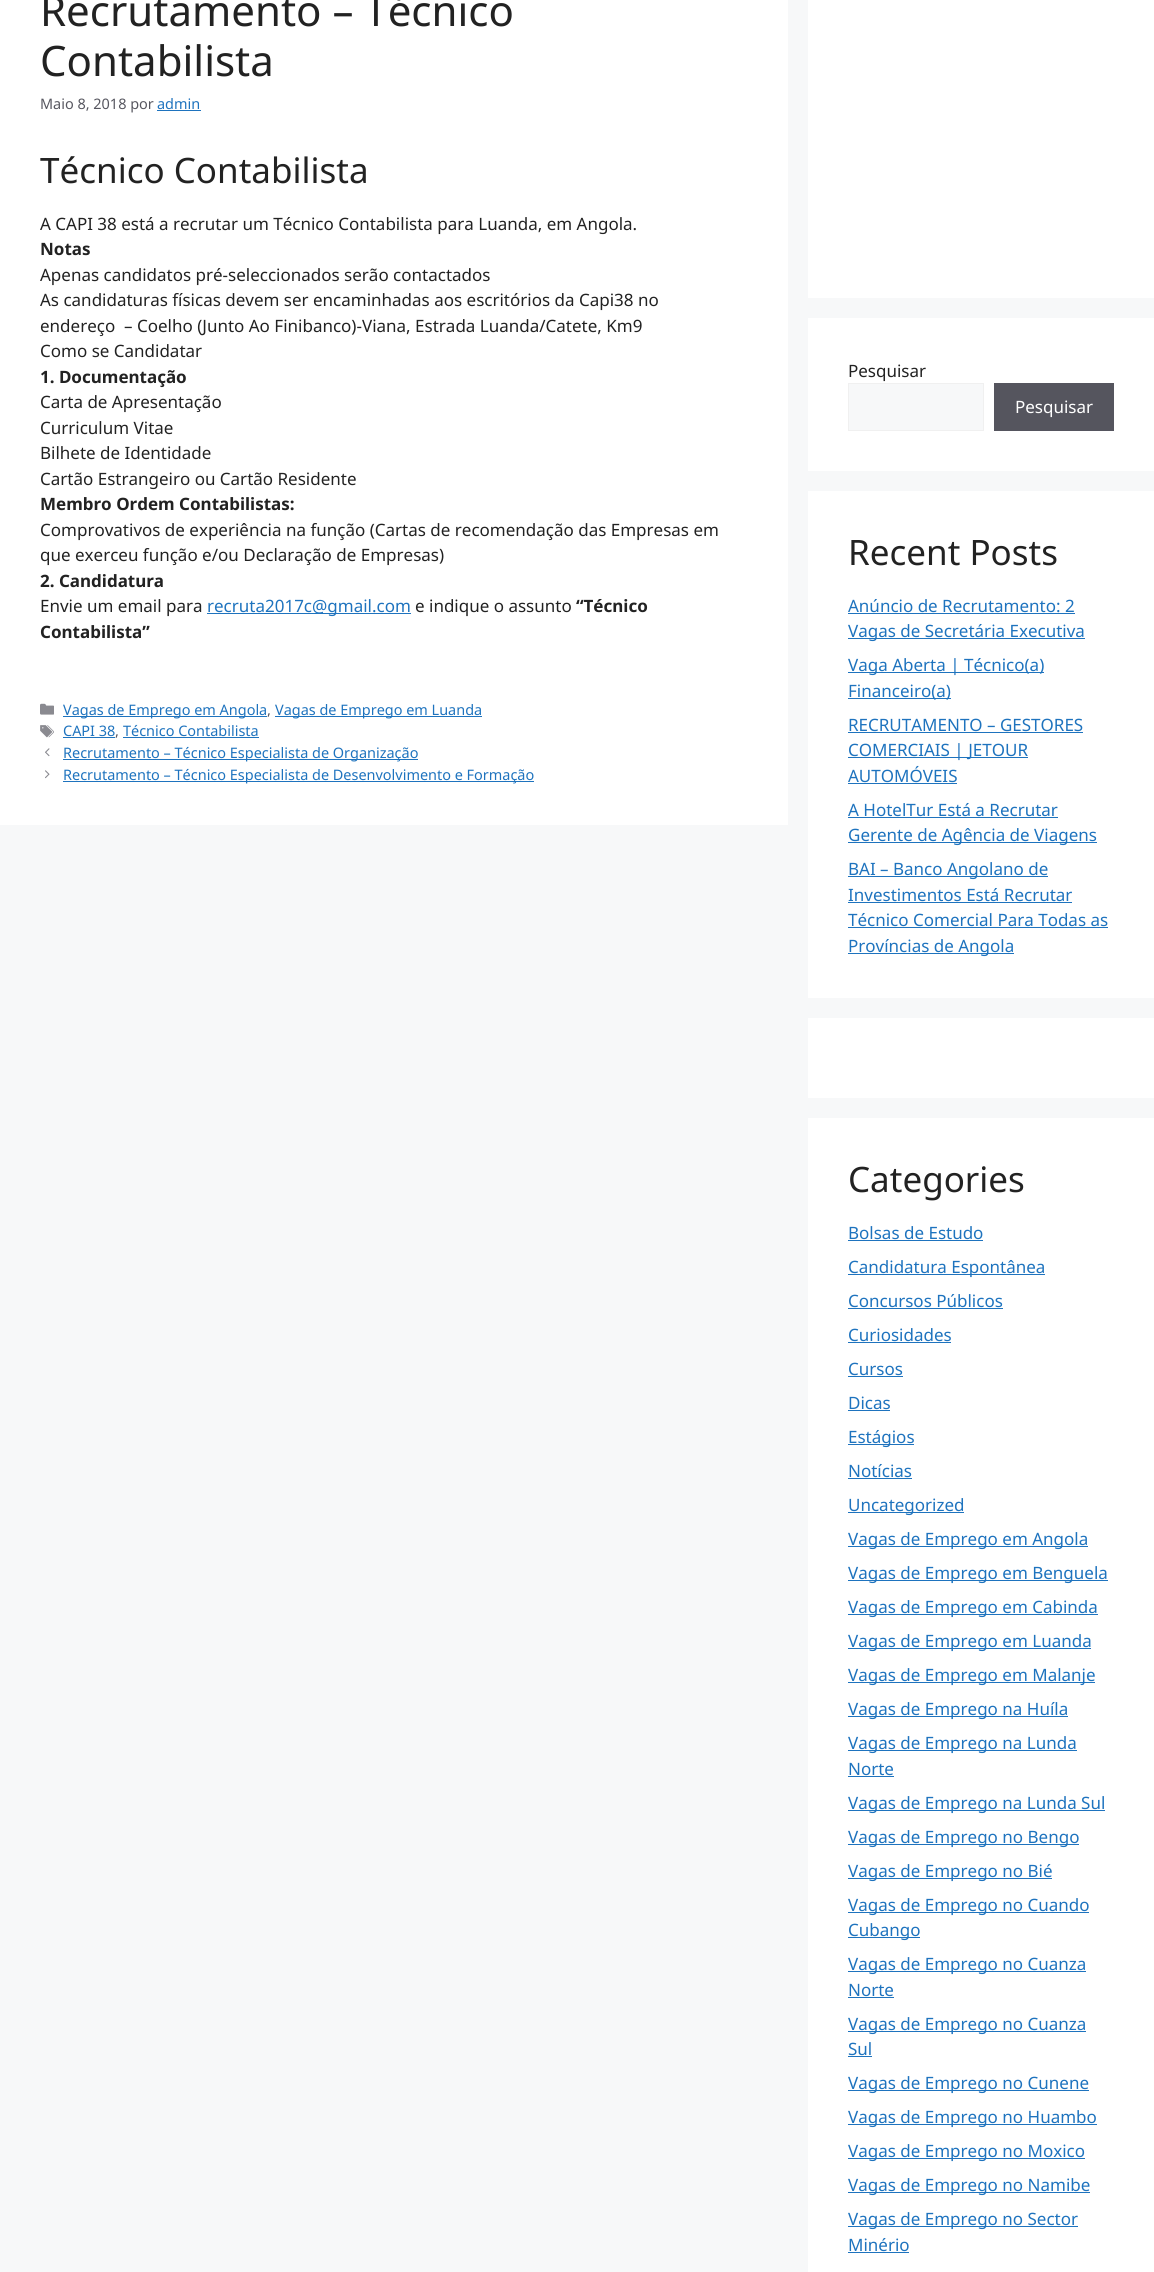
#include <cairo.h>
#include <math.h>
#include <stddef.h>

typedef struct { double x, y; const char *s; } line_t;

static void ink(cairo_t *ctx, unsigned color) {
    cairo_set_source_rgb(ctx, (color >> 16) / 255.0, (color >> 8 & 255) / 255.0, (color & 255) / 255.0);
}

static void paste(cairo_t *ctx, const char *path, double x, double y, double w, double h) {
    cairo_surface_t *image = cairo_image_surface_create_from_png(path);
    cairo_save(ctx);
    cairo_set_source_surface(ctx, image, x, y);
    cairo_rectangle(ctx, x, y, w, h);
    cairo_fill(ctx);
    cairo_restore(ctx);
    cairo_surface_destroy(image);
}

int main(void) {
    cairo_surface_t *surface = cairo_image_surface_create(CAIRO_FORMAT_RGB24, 1154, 2272);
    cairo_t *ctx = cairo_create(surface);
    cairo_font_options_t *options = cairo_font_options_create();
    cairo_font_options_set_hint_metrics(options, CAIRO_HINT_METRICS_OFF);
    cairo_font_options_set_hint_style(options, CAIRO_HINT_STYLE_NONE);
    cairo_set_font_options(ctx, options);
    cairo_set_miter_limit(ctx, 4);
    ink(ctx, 0xF7F8F9);
    cairo_paint(ctx);
    ink(ctx, 0xFFFFFF);
    cairo_rectangle(ctx, 0, 0, 788, 825);
    cairo_fill(ctx);
    cairo_select_font_face(ctx, "Noto Sans", CAIRO_FONT_SLANT_NORMAL, CAIRO_FONT_WEIGHT_NORMAL);
    cairo_set_font_size(ctx, 42);
    ink(ctx, 0x222222);
    cairo_move_to(ctx, 40, 26);
    cairo_show_text(ctx, "Recrutamento – Técnico");
    cairo_move_to(ctx, 40, 76);
    cairo_show_text(ctx, "Contabilista");
    cairo_set_font_size(ctx, 14.45);
    ink(ctx, 0x575760);
    cairo_move_to(ctx, 40, 109);
    cairo_show_text(ctx, "Maio 8, 2018 por");
    ink(ctx, 0x1E73BE);
    cairo_move_to(ctx, 157, 109);
    cairo_show_text(ctx, "admin");
    cairo_rectangle(ctx, 157, 110, 44, 1);
    cairo_fill(ctx);
    cairo_set_font_size(ctx, 35);
    ink(ctx, 0x222222);
    cairo_move_to(ctx, 40, 183);
    cairo_show_text(ctx, "Técnico Contabilista");
    cairo_set_font_size(ctx, 17);
    cairo_move_to(ctx, 40, 230);
    cairo_show_text(ctx, "A CAPI 38 está a recrutar um Técnico Contabilista para Luanda, em Angola.");
    cairo_select_font_face(ctx, "Noto Sans", CAIRO_FONT_SLANT_NORMAL, CAIRO_FONT_WEIGHT_BOLD);
    cairo_move_to(ctx, 40, 255);
    cairo_show_text(ctx, "Notas");
    cairo_select_font_face(ctx, "Noto Sans", CAIRO_FONT_SLANT_NORMAL, CAIRO_FONT_WEIGHT_NORMAL);
    {
        static const line_t items[] = {
            {40, 281, "Apenas candidatos pré-seleccionados serão contactados"},
            {40, 306, "As candidaturas físicas devem ser encaminhadas aos escritórios da Capi38 no"},
            {40, 332, "endereço  – Coelho (Junto Ao Finibanco)-Viana, Estrada Luanda/Catete, Km9"},
            {40, 357, "Como se Candidatar"},
        };
        for (size_t i = 0; i < sizeof items / sizeof *items; i++) {
            cairo_move_to(ctx, items[i].x, items[i].y);
            cairo_show_text(ctx, items[i].s);
        }
    }
    cairo_select_font_face(ctx, "Noto Sans", CAIRO_FONT_SLANT_NORMAL, CAIRO_FONT_WEIGHT_BOLD);
    cairo_move_to(ctx, 40, 383);
    cairo_show_text(ctx, "1. Documentação");
    cairo_select_font_face(ctx, "Noto Sans", CAIRO_FONT_SLANT_NORMAL, CAIRO_FONT_WEIGHT_NORMAL);
    {
        static const line_t items[] = {
            {40, 408, "Carta de Apresentação"},
            {40, 434, "Curriculum Vitae"},
            {40, 459, "Bilhete de Identidade"},
            {40, 485, "Cartão Estrangeiro ou Cartão Residente"},
        };
        for (size_t i = 0; i < sizeof items / sizeof *items; i++) {
            cairo_move_to(ctx, items[i].x, items[i].y);
            cairo_show_text(ctx, items[i].s);
        }
    }
    cairo_select_font_face(ctx, "Noto Sans", CAIRO_FONT_SLANT_NORMAL, CAIRO_FONT_WEIGHT_BOLD);
    cairo_move_to(ctx, 40, 510);
    cairo_show_text(ctx, "Membro Ordem Contabilistas:");
    cairo_select_font_face(ctx, "Noto Sans", CAIRO_FONT_SLANT_NORMAL, CAIRO_FONT_WEIGHT_NORMAL);
    cairo_move_to(ctx, 40, 536);
    cairo_show_text(ctx, "Comprovativos de experiência na função (Cartas de recomendação das Empresas em");
    cairo_move_to(ctx, 40, 561);
    cairo_show_text(ctx, "que exerceu função e/ou Declaração de Empresas)");
    cairo_select_font_face(ctx, "Noto Sans", CAIRO_FONT_SLANT_NORMAL, CAIRO_FONT_WEIGHT_BOLD);
    cairo_move_to(ctx, 40, 587);
    cairo_show_text(ctx, "2. Candidatura");
    cairo_select_font_face(ctx, "Noto Sans", CAIRO_FONT_SLANT_NORMAL, CAIRO_FONT_WEIGHT_NORMAL);
    cairo_move_to(ctx, 40, 612);
    cairo_show_text(ctx, "Envie um email para");
    ink(ctx, 0x1E73BE);
    cairo_rectangle(ctx, 207, 613, 204, 1);
    cairo_fill(ctx);
    cairo_move_to(ctx, 207, 612);
    cairo_show_text(ctx, "recruta2017c@gmail.com");
    ink(ctx, 0x222222);
    cairo_move_to(ctx, 415, 612);
    cairo_show_text(ctx, "e indique o assunto");
    cairo_select_font_face(ctx, "Noto Sans", CAIRO_FONT_SLANT_NORMAL, CAIRO_FONT_WEIGHT_BOLD);
    cairo_move_to(ctx, 576, 612);
    cairo_show_text(ctx, "“Técnico");
    cairo_move_to(ctx, 40, 638);
    cairo_show_text(ctx, "Contabilista”");
    paste(ctx, "media/1.png", 40, 703, 14, 12);
    ink(ctx, 0x1E73BE);
    cairo_rectangle(ctx, 63, 716, 204, 1);
    cairo_fill(ctx);
    cairo_select_font_face(ctx, "Noto Sans", CAIRO_FONT_SLANT_NORMAL, CAIRO_FONT_WEIGHT_NORMAL);
    cairo_set_font_size(ctx, 14.45);
    cairo_move_to(ctx, 63, 715);
    cairo_show_text(ctx, "Vagas de Emprego em Angola");
    ink(ctx, 0x575760);
    cairo_move_to(ctx, 267, 715);
    cairo_show_text(ctx, ",");
    ink(ctx, 0x1E73BE);
    cairo_rectangle(ctx, 275, 716, 207, 1);
    cairo_fill(ctx);
    cairo_move_to(ctx, 275, 715);
    cairo_show_text(ctx, "Vagas de Emprego em Luanda");
    paste(ctx, "media/2.png", 40, 725, 14, 13);
    cairo_move_to(ctx, 63, 736);
    cairo_show_text(ctx, "CAPI 38");
    cairo_rectangle(ctx, 63, 737, 52, 1);
    cairo_fill(ctx);
    ink(ctx, 0x575760);
    cairo_move_to(ctx, 115, 736);
    cairo_show_text(ctx, ",");
    ink(ctx, 0x1E73BE);
    cairo_move_to(ctx, 123, 736);
    cairo_show_text(ctx, "Técnico Contabilista");
    cairo_rectangle(ctx, 123, 737, 136, 1);
    cairo_fill(ctx);
    paste(ctx, "media/3.png", 45, 748, 5, 9);
    cairo_rectangle(ctx, 63, 759, 355, 1);
    cairo_fill(ctx);
    cairo_move_to(ctx, 63, 758);
    cairo_show_text(ctx, "Recrutamento – Técnico Especialista de Organização");
    paste(ctx, "media/4.png", 45, 770, 5, 9);
    cairo_rectangle(ctx, 63, 781, 471, 1);
    cairo_fill(ctx);
    cairo_move_to(ctx, 63, 780);
    cairo_show_text(ctx, "Recrutamento – Técnico Especialista de Desenvolvimento e Formação");
    ink(ctx, 0xFFFFFF);
    cairo_rectangle(ctx, 808, 0, 346, 298);
    cairo_fill(ctx);
    cairo_rectangle(ctx, 808, 318, 346, 153);
    cairo_fill(ctx);
    cairo_set_font_size(ctx, 17);
    ink(ctx, 0x222222);
    cairo_move_to(ctx, 848, 377);
    cairo_show_text(ctx, "Pesquisar");
    ink(ctx, 0xF7F8F9);
    cairo_rectangle(ctx, 848.5, 383.5, 135, 47);
    cairo_fill_preserve(ctx);
    ink(ctx, 0xF0F0F0);
    cairo_set_line_width(ctx, 1);
    cairo_stroke(ctx);
    ink(ctx, 0x55555E);
    cairo_rectangle(ctx, 994, 383, 120, 48);
    cairo_fill(ctx);
    ink(ctx, 0xFFFFFF);
    cairo_move_to(ctx, 1015, 413);
    cairo_show_text(ctx, "Pesquisar");
    cairo_rectangle(ctx, 808, 491, 346, 507);
    cairo_fill(ctx);
    cairo_set_font_size(ctx, 35);
    ink(ctx, 0x222222);
    cairo_move_to(ctx, 848, 565);
    cairo_show_text(ctx, "Recent Posts");
    cairo_set_font_size(ctx, 17);
    ink(ctx, 0x1E73BE);
    cairo_move_to(ctx, 848, 612);
    cairo_show_text(ctx, "Anúncio de Recrutamento: 2");
    cairo_rectangle(ctx, 848, 613, 227, 1);
    cairo_fill(ctx);
    cairo_rectangle(ctx, 848, 638, 237, 1);
    cairo_fill(ctx);
    cairo_move_to(ctx, 848, 637);
    cairo_show_text(ctx, "Vagas de Secretária Executiva");
    cairo_rectangle(ctx, 848, 672, 196, 1);
    cairo_fill(ctx);
    cairo_move_to(ctx, 848, 671);
    cairo_show_text(ctx, "Vaga Aberta | Técnico(a)");
    cairo_rectangle(ctx, 848, 698, 103, 1);
    cairo_fill(ctx);
    cairo_move_to(ctx, 848, 697);
    cairo_show_text(ctx, "Financeiro(a)");
    cairo_move_to(ctx, 848, 731);
    cairo_show_text(ctx, "RECRUTAMENTO – GESTORES");
    cairo_rectangle(ctx, 848, 732, 235, 1);
    cairo_fill(ctx);
    cairo_rectangle(ctx, 848, 757, 180, 1);
    cairo_fill(ctx);
    cairo_move_to(ctx, 848, 756);
    cairo_show_text(ctx, "COMERCIAIS | JETOUR");
    cairo_move_to(ctx, 848, 782);
    cairo_show_text(ctx, "AUTOMÓVEIS");
    cairo_rectangle(ctx, 848, 783, 109, 1);
    cairo_fill(ctx);
    cairo_move_to(ctx, 848, 816);
    cairo_show_text(ctx, "A HotelTur Está a Recrutar");
    cairo_rectangle(ctx, 848, 817, 210, 1);
    cairo_fill(ctx);
    cairo_rectangle(ctx, 848, 842, 249, 1);
    cairo_fill(ctx);
    cairo_move_to(ctx, 848, 841);
    cairo_show_text(ctx, "Gerente de Agência de Viagens");
    cairo_rectangle(ctx, 848, 876, 200, 1);
    cairo_fill(ctx);
    cairo_move_to(ctx, 848, 875);
    cairo_show_text(ctx, "BAI – Banco Angolano de");
    cairo_move_to(ctx, 848, 901);
    cairo_show_text(ctx, "Investimentos Está Recrutar");
    cairo_rectangle(ctx, 848, 902, 224, 1);
    cairo_fill(ctx);
    cairo_move_to(ctx, 848, 926);
    cairo_show_text(ctx, "Técnico Comercial Para Todas as");
    cairo_rectangle(ctx, 848, 927, 260, 1);
    cairo_fill(ctx);
    cairo_rectangle(ctx, 848, 953, 166, 1);
    cairo_fill(ctx);
    cairo_move_to(ctx, 848, 952);
    cairo_show_text(ctx, "Províncias de Angola");
    ink(ctx, 0xFFFFFF);
    cairo_rectangle(ctx, 808, 1018, 346, 80);
    cairo_fill(ctx);
    cairo_rectangle(ctx, 808, 1118, 346, 1154);
    cairo_fill(ctx);
    cairo_set_font_size(ctx, 35);
    ink(ctx, 0x222222);
    cairo_move_to(ctx, 848, 1192);
    cairo_show_text(ctx, "Categories");
    cairo_set_font_size(ctx, 17);
    ink(ctx, 0x1E73BE);
    cairo_move_to(ctx, 848, 1239);
    cairo_show_text(ctx, "Bolsas de Estudo");
    cairo_rectangle(ctx, 848, 1240, 135, 1);
    cairo_fill(ctx);
    cairo_rectangle(ctx, 848, 1274, 197, 1);
    cairo_fill(ctx);
    cairo_move_to(ctx, 848, 1273);
    cairo_show_text(ctx, "Candidatura Espontânea");
    cairo_move_to(ctx, 848, 1307);
    cairo_show_text(ctx, "Concursos Públicos");
    cairo_rectangle(ctx, 848, 1308, 155, 1);
    cairo_fill(ctx);
    cairo_move_to(ctx, 848, 1341);
    cairo_show_text(ctx, "Curiosidades");
    cairo_rectangle(ctx, 848, 1342, 103, 1);
    cairo_fill(ctx);
    cairo_move_to(ctx, 848, 1375);
    cairo_show_text(ctx, "Cursos");
    cairo_rectangle(ctx, 848, 1376, 55, 1);
    cairo_fill(ctx);
    cairo_move_to(ctx, 848, 1409);
    cairo_show_text(ctx, "Dicas");
    cairo_rectangle(ctx, 848, 1410, 42, 1);
    cairo_fill(ctx);
    cairo_rectangle(ctx, 848, 1444, 66, 1);
    cairo_fill(ctx);
    cairo_move_to(ctx, 848, 1443);
    cairo_show_text(ctx, "Estágios");
    cairo_move_to(ctx, 848, 1477);
    cairo_show_text(ctx, "Notícias");
    cairo_rectangle(ctx, 848, 1478, 64, 1);
    cairo_fill(ctx);
    cairo_rectangle(ctx, 848, 1512, 116, 1);
    cairo_fill(ctx);
    cairo_move_to(ctx, 848, 1511);
    cairo_show_text(ctx, "Uncategorized");
    cairo_rectangle(ctx, 848, 1546, 240, 1);
    cairo_fill(ctx);
    cairo_move_to(ctx, 848, 1545);
    cairo_show_text(ctx, "Vagas de Emprego em Angola");
    cairo_rectangle(ctx, 848, 1580, 260, 1);
    cairo_fill(ctx);
    cairo_move_to(ctx, 848, 1579);
    cairo_show_text(ctx, "Vagas de Emprego em Benguela");
    cairo_rectangle(ctx, 848, 1614, 250, 1);
    cairo_fill(ctx);
    cairo_move_to(ctx, 848, 1613);
    cairo_show_text(ctx, "Vagas de Emprego em Cabinda");
    cairo_rectangle(ctx, 848, 1648, 243, 1);
    cairo_fill(ctx);
    cairo_move_to(ctx, 848, 1647);
    cairo_show_text(ctx, "Vagas de Emprego em Luanda");
    cairo_rectangle(ctx, 848, 1682, 247, 1);
    cairo_fill(ctx);
    cairo_move_to(ctx, 848, 1681);
    cairo_show_text(ctx, "Vagas de Emprego em Malanje");
    cairo_rectangle(ctx, 848, 1716, 220, 1);
    cairo_fill(ctx);
    cairo_move_to(ctx, 848, 1715);
    cairo_show_text(ctx, "Vagas de Emprego na Huíla");
    cairo_rectangle(ctx, 848, 1750, 229, 1);
    cairo_fill(ctx);
    cairo_move_to(ctx, 848, 1749);
    cairo_show_text(ctx, "Vagas de Emprego na Lunda");
    cairo_move_to(ctx, 848, 1775);
    cairo_show_text(ctx, "Norte");
    cairo_rectangle(ctx, 848, 1776, 46, 1);
    cairo_fill(ctx);
    cairo_rectangle(ctx, 848, 1810, 257, 1);
    cairo_fill(ctx);
    cairo_move_to(ctx, 848, 1809);
    cairo_show_text(ctx, "Vagas de Emprego na Lunda Sul");
    cairo_rectangle(ctx, 848, 1844, 231, 1);
    cairo_fill(ctx);
    cairo_move_to(ctx, 848, 1843);
    cairo_show_text(ctx, "Vagas de Emprego no Bengo");
    cairo_rectangle(ctx, 848, 1878, 204, 1);
    cairo_fill(ctx);
    cairo_move_to(ctx, 848, 1877);
    cairo_show_text(ctx, "Vagas de Emprego no Bié");
    cairo_rectangle(ctx, 848, 1912, 241, 1);
    cairo_fill(ctx);
    cairo_move_to(ctx, 848, 1911);
    cairo_show_text(ctx, "Vagas de Emprego no Cuando");
    cairo_rectangle(ctx, 848, 1937, 72, 1);
    cairo_fill(ctx);
    cairo_move_to(ctx, 848, 1936);
    cairo_show_text(ctx, "Cubango");
    cairo_rectangle(ctx, 848, 1971, 238, 1);
    cairo_fill(ctx);
    cairo_move_to(ctx, 848, 1970);
    cairo_show_text(ctx, "Vagas de Emprego no Cuanza");
    cairo_move_to(ctx, 848, 1996);
    cairo_show_text(ctx, "Norte");
    cairo_rectangle(ctx, 848, 1997, 46, 1);
    cairo_fill(ctx);
    cairo_rectangle(ctx, 848, 2031, 238, 1);
    cairo_fill(ctx);
    cairo_move_to(ctx, 848, 2030);
    cairo_show_text(ctx, "Vagas de Emprego no Cuanza");
    cairo_move_to(ctx, 848, 2055);
    cairo_show_text(ctx, "Sul");
    cairo_rectangle(ctx, 848, 2056, 24, 1);
    cairo_fill(ctx);
    cairo_rectangle(ctx, 848, 2090, 241, 1);
    cairo_fill(ctx);
    cairo_move_to(ctx, 848, 2089);
    cairo_show_text(ctx, "Vagas de Emprego no Cunene");
    cairo_rectangle(ctx, 848, 2124, 249, 1);
    cairo_fill(ctx);
    cairo_move_to(ctx, 848, 2123);
    cairo_show_text(ctx, "Vagas de Emprego no Huambo");
    cairo_rectangle(ctx, 848, 2158, 237, 1);
    cairo_fill(ctx);
    cairo_move_to(ctx, 848, 2157);
    cairo_show_text(ctx, "Vagas de Emprego no Moxico");
    cairo_rectangle(ctx, 848, 2192, 242, 1);
    cairo_fill(ctx);
    cairo_move_to(ctx, 848, 2191);
    cairo_show_text(ctx, "Vagas de Emprego no Namibe");
    cairo_rectangle(ctx, 848, 2226, 230, 1);
    cairo_fill(ctx);
    cairo_move_to(ctx, 848, 2225);
    cairo_show_text(ctx, "Vagas de Emprego no Sector");
    cairo_move_to(ctx, 848, 2251);
    cairo_show_text(ctx, "Minério");
    cairo_rectangle(ctx, 848, 2252, 61, 1);
    cairo_fill(ctx);
    cairo_surface_write_to_png(surface, "image.png");
    cairo_font_options_destroy(options);
    cairo_destroy(ctx);
    cairo_surface_destroy(surface);
    return 0;
}
